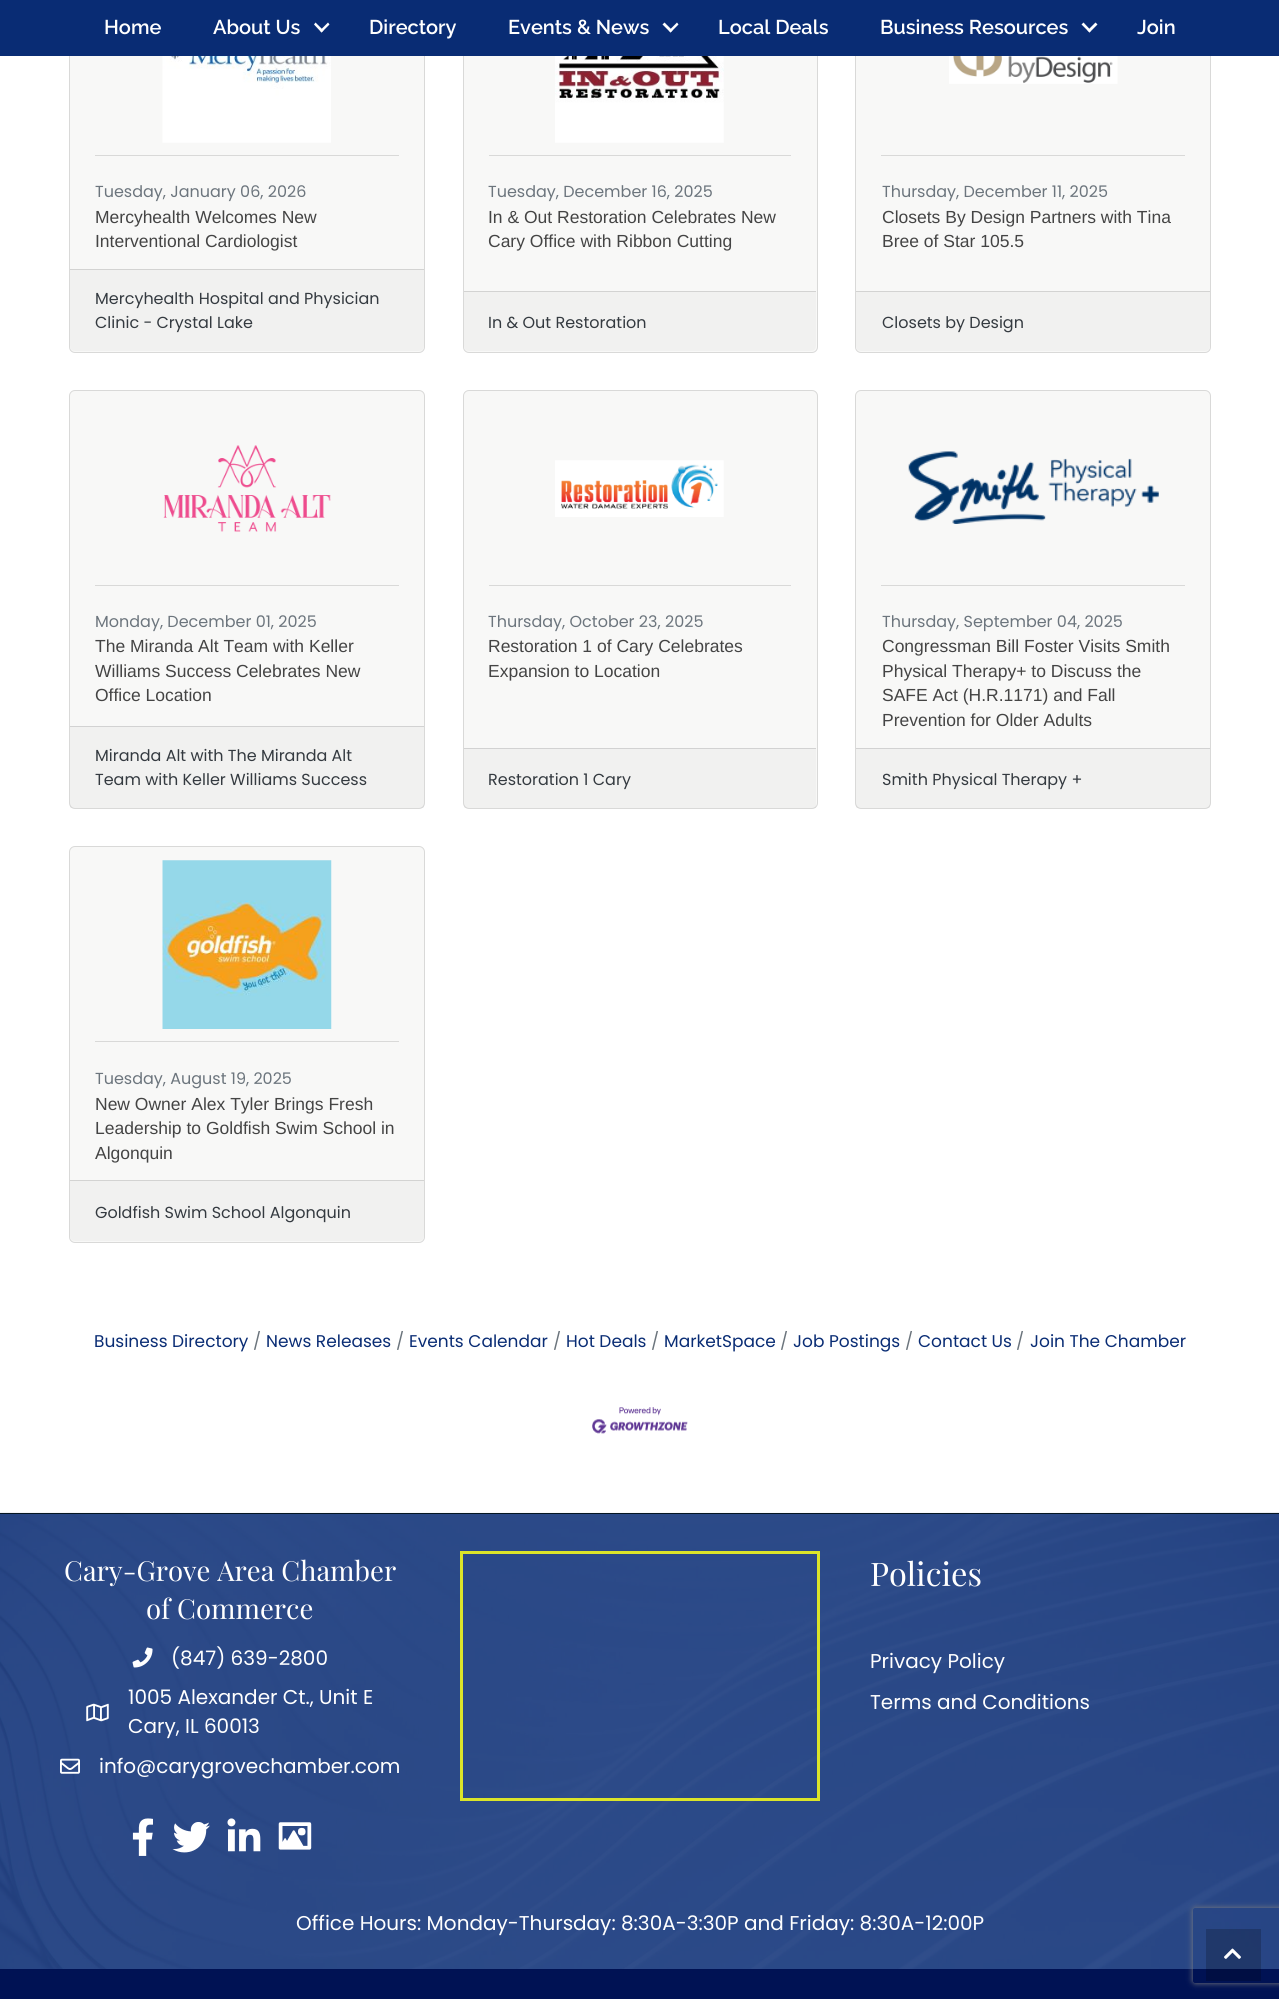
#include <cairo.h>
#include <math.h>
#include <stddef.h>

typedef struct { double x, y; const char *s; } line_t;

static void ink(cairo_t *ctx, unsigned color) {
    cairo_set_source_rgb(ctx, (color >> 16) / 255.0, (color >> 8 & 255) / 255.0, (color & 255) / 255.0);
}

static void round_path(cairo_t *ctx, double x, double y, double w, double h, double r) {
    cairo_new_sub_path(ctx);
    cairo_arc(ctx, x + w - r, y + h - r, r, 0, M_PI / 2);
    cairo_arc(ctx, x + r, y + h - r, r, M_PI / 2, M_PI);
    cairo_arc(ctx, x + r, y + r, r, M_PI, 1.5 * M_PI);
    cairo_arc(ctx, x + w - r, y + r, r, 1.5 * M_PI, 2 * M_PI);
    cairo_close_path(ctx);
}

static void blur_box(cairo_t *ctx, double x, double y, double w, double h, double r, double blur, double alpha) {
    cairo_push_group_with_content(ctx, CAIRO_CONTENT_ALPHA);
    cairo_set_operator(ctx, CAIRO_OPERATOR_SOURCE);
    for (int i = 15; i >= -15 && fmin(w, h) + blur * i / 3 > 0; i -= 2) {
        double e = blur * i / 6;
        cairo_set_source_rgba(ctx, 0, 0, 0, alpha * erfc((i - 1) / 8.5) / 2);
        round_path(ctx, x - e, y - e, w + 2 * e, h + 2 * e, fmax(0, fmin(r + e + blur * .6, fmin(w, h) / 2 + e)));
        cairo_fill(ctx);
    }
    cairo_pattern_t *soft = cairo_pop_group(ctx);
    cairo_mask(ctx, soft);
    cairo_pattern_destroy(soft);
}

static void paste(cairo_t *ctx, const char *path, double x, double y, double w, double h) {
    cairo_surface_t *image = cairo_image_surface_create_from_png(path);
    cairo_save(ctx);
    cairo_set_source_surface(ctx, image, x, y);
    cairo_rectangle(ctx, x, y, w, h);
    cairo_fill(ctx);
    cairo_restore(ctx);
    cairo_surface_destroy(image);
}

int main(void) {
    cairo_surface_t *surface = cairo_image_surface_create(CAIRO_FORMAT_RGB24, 1279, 1999);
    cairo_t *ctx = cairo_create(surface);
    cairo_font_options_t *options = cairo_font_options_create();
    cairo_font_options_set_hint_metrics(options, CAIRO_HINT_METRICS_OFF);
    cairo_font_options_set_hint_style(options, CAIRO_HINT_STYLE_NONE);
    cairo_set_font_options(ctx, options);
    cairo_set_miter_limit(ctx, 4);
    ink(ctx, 0xFFFFFF);
    cairo_paint(ctx);
    ink(ctx, 0xF8F8F7);
    round_path(ctx, 69.5, -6.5, 355, 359, 5.5);
    cairo_fill_preserve(ctx);
    ink(ctx, 0xD9D9D8);
    cairo_set_line_width(ctx, 1);
    cairo_stroke(ctx);
    ink(ctx, 0xF8F8F7);
    round_path(ctx, 463.5, -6.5, 354, 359, 5.5);
    cairo_fill_preserve(ctx);
    ink(ctx, 0xD9D9D8);
    cairo_stroke(ctx);
    ink(ctx, 0xF8F8F7);
    round_path(ctx, 855.5, -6.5, 355, 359, 5.5);
    cairo_fill_preserve(ctx);
    ink(ctx, 0xD9D9D8);
    cairo_stroke(ctx);
    ink(ctx, 0x092C74);
    cairo_rectangle(ctx, 0, 0, 1279, 56);
    cairo_fill(ctx);
    cairo_select_font_face(ctx, "Raleway Thin", CAIRO_FONT_SLANT_NORMAL, CAIRO_FONT_WEIGHT_NORMAL);
    cairo_set_font_size(ctx, 20);
    ink(ctx, 0xFFFFFF);
    cairo_move_to(ctx, 104, 34);
    cairo_show_text(ctx, "Home");
    cairo_move_to(ctx, 213, 34);
    cairo_show_text(ctx, "About Us");
    cairo_new_path(ctx);
    cairo_move_to(ctx, 328, 22.5);
    cairo_line_to(ctx, 329.5, 24.5);
    cairo_line_to(ctx, 321.5, 32.5);
    cairo_line_to(ctx, 320, 30.5);
    cairo_close_path(ctx);
    cairo_fill(ctx);
    cairo_new_path(ctx);
    cairo_move_to(ctx, 315.5, 22.5);
    cairo_line_to(ctx, 323.5, 30.5);
    cairo_line_to(ctx, 321.5, 32.5);
    cairo_line_to(ctx, 314, 24.5);
    cairo_close_path(ctx);
    cairo_fill(ctx);
    cairo_move_to(ctx, 369, 34);
    cairo_show_text(ctx, "Directory");
    cairo_move_to(ctx, 508, 34);
    cairo_show_text(ctx, "Events & News");
    cairo_new_path(ctx);
    cairo_move_to(ctx, 677, 22.5);
    cairo_line_to(ctx, 678.5, 24.5);
    cairo_line_to(ctx, 670.5, 32.5);
    cairo_line_to(ctx, 669, 30.5);
    cairo_close_path(ctx);
    cairo_fill(ctx);
    cairo_new_path(ctx);
    cairo_move_to(ctx, 664.5, 22.5);
    cairo_line_to(ctx, 672.5, 30.5);
    cairo_line_to(ctx, 670.5, 32.5);
    cairo_line_to(ctx, 662.5, 24.5);
    cairo_close_path(ctx);
    cairo_fill(ctx);
    cairo_move_to(ctx, 718, 34);
    cairo_show_text(ctx, "Local Deals");
    cairo_move_to(ctx, 880, 34);
    cairo_show_text(ctx, "Business Resources");
    cairo_new_path(ctx);
    cairo_move_to(ctx, 1095.5, 22.5);
    cairo_line_to(ctx, 1097.5, 24.5);
    cairo_line_to(ctx, 1089.5, 32.5);
    cairo_line_to(ctx, 1087.5, 30.5);
    cairo_close_path(ctx);
    cairo_fill(ctx);
    cairo_new_path(ctx);
    cairo_move_to(ctx, 1083.5, 22.5);
    cairo_line_to(ctx, 1091, 30.5);
    cairo_line_to(ctx, 1089.5, 32.5);
    cairo_line_to(ctx, 1081.5, 24.5);
    cairo_close_path(ctx);
    cairo_fill(ctx);
    cairo_move_to(ctx, 1137, 34);
    cairo_show_text(ctx, "Join");
    paste(ctx, "media/1.png", 162, 56, 169, 87);
    ink(ctx, 0xD9D9D8);
    cairo_rectangle(ctx, 95, 155, 304, 1);
    cairo_fill(ctx);
    cairo_select_font_face(ctx, "Poppins", CAIRO_FONT_SLANT_NORMAL, CAIRO_FONT_WEIGHT_NORMAL);
    cairo_set_font_size(ctx, 16);
    ink(ctx, 0x6C757D);
    cairo_move_to(ctx, 95, 197);
    cairo_show_text(ctx, "Tuesday, January 06, 2026");
    cairo_select_font_face(ctx, "Liberation Sans", CAIRO_FONT_SLANT_NORMAL, CAIRO_FONT_WEIGHT_NORMAL);
    cairo_set_font_size(ctx, 17.5);
    ink(ctx, 0x444444);
    cairo_move_to(ctx, 95, 223);
    cairo_show_text(ctx, "Mercyhealth Welcomes New");
    cairo_move_to(ctx, 95, 247);
    cairo_show_text(ctx, "Interventional Cardiologist");
    ink(ctx, 0xF1F1F0);
    cairo_new_path(ctx);
    cairo_move_to(ctx, 70, 269);
    cairo_line_to(ctx, 424, 269);
    cairo_line_to(ctx, 424, 346);
    cairo_curve_to(ctx, 424, 349, 422, 351, 419, 351);
    cairo_line_to(ctx, 75, 351);
    cairo_curve_to(ctx, 72, 351, 70, 349, 70, 346);
    cairo_close_path(ctx);
    cairo_fill(ctx);
    ink(ctx, 0xD3D3D2);
    cairo_rectangle(ctx, 70, 269, 354, 1);
    cairo_fill(ctx);
    cairo_select_font_face(ctx, "Poppins", CAIRO_FONT_SLANT_NORMAL, CAIRO_FONT_WEIGHT_NORMAL);
    cairo_set_font_size(ctx, 16);
    ink(ctx, 0x343A40);
    cairo_move_to(ctx, 95, 304);
    cairo_show_text(ctx, "Mercyhealth Hospital and Physician");
    cairo_move_to(ctx, 95, 328);
    cairo_show_text(ctx, "Clinic - Crystal Lake");
    paste(ctx, "media/2.png", 555, 56, 169, 87);
    ink(ctx, 0xD9D9D8);
    cairo_rectangle(ctx, 489, 155, 302, 1);
    cairo_fill(ctx);
    ink(ctx, 0x6C757D);
    cairo_move_to(ctx, 488, 197);
    cairo_show_text(ctx, "Tuesday, December 16, 2025");
    cairo_select_font_face(ctx, "Liberation Sans", CAIRO_FONT_SLANT_NORMAL, CAIRO_FONT_WEIGHT_NORMAL);
    cairo_set_font_size(ctx, 17.5);
    ink(ctx, 0x444444);
    cairo_move_to(ctx, 488, 223);
    cairo_show_text(ctx, "In & Out Restoration Celebrates New");
    cairo_move_to(ctx, 488, 247);
    cairo_show_text(ctx, "Cary Office with Ribbon Cutting");
    ink(ctx, 0xF1F1F0);
    cairo_new_path(ctx);
    cairo_move_to(ctx, 464, 291);
    cairo_line_to(ctx, 816, 291);
    cairo_line_to(ctx, 816, 346);
    cairo_curve_to(ctx, 816, 349, 814, 351, 811, 351);
    cairo_line_to(ctx, 469, 351);
    cairo_curve_to(ctx, 466, 351, 464, 349, 464, 346);
    cairo_close_path(ctx);
    cairo_fill(ctx);
    ink(ctx, 0xD3D3D2);
    cairo_rectangle(ctx, 464, 291, 352, 1);
    cairo_fill(ctx);
    cairo_select_font_face(ctx, "Poppins", CAIRO_FONT_SLANT_NORMAL, CAIRO_FONT_WEIGHT_NORMAL);
    cairo_set_font_size(ctx, 16);
    ink(ctx, 0x343A40);
    cairo_move_to(ctx, 488, 328);
    cairo_show_text(ctx, "In & Out Restoration");
    paste(ctx, "media/3.png", 949, 56, 169, 28);
    ink(ctx, 0xD9D9D8);
    cairo_rectangle(ctx, 881, 155, 304, 1);
    cairo_fill(ctx);
    ink(ctx, 0x6C757D);
    cairo_move_to(ctx, 882, 197);
    cairo_show_text(ctx, "Thursday, December 11, 2025");
    cairo_select_font_face(ctx, "Liberation Sans", CAIRO_FONT_SLANT_NORMAL, CAIRO_FONT_WEIGHT_NORMAL);
    cairo_set_font_size(ctx, 17.5);
    ink(ctx, 0x444444);
    cairo_move_to(ctx, 882, 223);
    cairo_show_text(ctx, "Closets By Design Partners with Tina");
    cairo_move_to(ctx, 882, 247);
    cairo_show_text(ctx, "Bree of Star 105.5");
    ink(ctx, 0xF1F1F0);
    cairo_new_path(ctx);
    cairo_move_to(ctx, 856, 291);
    cairo_line_to(ctx, 1210, 291);
    cairo_line_to(ctx, 1210, 346);
    cairo_curve_to(ctx, 1210, 349, 1208, 351, 1205, 351);
    cairo_line_to(ctx, 861, 351);
    cairo_curve_to(ctx, 858, 351, 856, 349, 856, 346);
    cairo_close_path(ctx);
    cairo_fill(ctx);
    ink(ctx, 0xD3D3D2);
    cairo_rectangle(ctx, 856, 291, 354, 1);
    cairo_fill(ctx);
    cairo_select_font_face(ctx, "Poppins", CAIRO_FONT_SLANT_NORMAL, CAIRO_FONT_WEIGHT_NORMAL);
    cairo_set_font_size(ctx, 16);
    ink(ctx, 0x343A40);
    cairo_move_to(ctx, 882, 328);
    cairo_show_text(ctx, "Closets by Design");
    ink(ctx, 0xF8F8F7);
    round_path(ctx, 69.5, 390.5, 355, 418, 5.5);
    cairo_fill_preserve(ctx);
    ink(ctx, 0xD9D9D8);
    cairo_stroke(ctx);
    paste(ctx, "media/4.png", 163, 445, 168, 87);
    cairo_rectangle(ctx, 95, 585, 304, 1);
    cairo_fill(ctx);
    ink(ctx, 0x6C757D);
    cairo_move_to(ctx, 95, 627);
    cairo_show_text(ctx, "Monday, December 01, 2025");
    cairo_select_font_face(ctx, "Liberation Sans", CAIRO_FONT_SLANT_NORMAL, CAIRO_FONT_WEIGHT_NORMAL);
    cairo_set_font_size(ctx, 17.5);
    ink(ctx, 0x444444);
    {
        static const line_t items[] = {
            {95, 652, "The Miranda Alt Team with Keller"},
            {95, 677, "Williams Success Celebrates New"},
            {95, 701, "Office Location"},
        };
        for (size_t i = 0; i < sizeof items / sizeof *items; i++) {
            cairo_move_to(ctx, items[i].x, items[i].y);
            cairo_show_text(ctx, items[i].s);
        }
    }
    cairo_set_source_rgba(ctx, 0, 0, 0, 0.03);
    cairo_rectangle(ctx, 70, 727, 354, 81);
    cairo_fill(ctx);
    ink(ctx, 0xD2D2D2);
    cairo_rectangle(ctx, 70, 726, 354, 1);
    cairo_fill(ctx);
    cairo_select_font_face(ctx, "Poppins", CAIRO_FONT_SLANT_NORMAL, CAIRO_FONT_WEIGHT_NORMAL);
    cairo_set_font_size(ctx, 16);
    ink(ctx, 0x343A40);
    cairo_move_to(ctx, 95, 761);
    cairo_show_text(ctx, "Miranda Alt with The Miranda Alt");
    cairo_move_to(ctx, 95, 785);
    cairo_show_text(ctx, "Team with Keller Williams Success");
    ink(ctx, 0xF8F8F7);
    round_path(ctx, 463.5, 390.5, 354, 418, 5.5);
    cairo_fill_preserve(ctx);
    ink(ctx, 0xD9D9D8);
    cairo_stroke(ctx);
    paste(ctx, "media/5.png", 555, 460, 169, 57);
    cairo_rectangle(ctx, 489, 585, 302, 1);
    cairo_fill(ctx);
    ink(ctx, 0x6C757D);
    cairo_move_to(ctx, 488, 627);
    cairo_show_text(ctx, "Thursday, October 23, 2025");
    cairo_select_font_face(ctx, "Liberation Sans", CAIRO_FONT_SLANT_NORMAL, CAIRO_FONT_WEIGHT_NORMAL);
    cairo_set_font_size(ctx, 17.5);
    ink(ctx, 0x444444);
    cairo_move_to(ctx, 488, 652);
    cairo_show_text(ctx, "Restoration 1 of Cary Celebrates");
    cairo_move_to(ctx, 488, 677);
    cairo_show_text(ctx, "Expansion to Location");
    cairo_set_source_rgba(ctx, 0, 0, 0, 0.03);
    cairo_rectangle(ctx, 464, 749, 352, 59);
    cairo_fill(ctx);
    ink(ctx, 0xD2D2D2);
    cairo_rectangle(ctx, 464, 748, 352, 1);
    cairo_fill(ctx);
    cairo_select_font_face(ctx, "Poppins", CAIRO_FONT_SLANT_NORMAL, CAIRO_FONT_WEIGHT_NORMAL);
    cairo_set_font_size(ctx, 16);
    ink(ctx, 0x343A40);
    cairo_move_to(ctx, 488, 785);
    cairo_show_text(ctx, "Restoration 1 Cary");
    ink(ctx, 0xF8F8F7);
    round_path(ctx, 855.5, 390.5, 355, 418, 5.5);
    cairo_fill_preserve(ctx);
    ink(ctx, 0xD9D9D8);
    cairo_stroke(ctx);
    paste(ctx, "media/6.png", 908, 451, 251, 73);
    cairo_rectangle(ctx, 881, 585, 304, 1);
    cairo_fill(ctx);
    ink(ctx, 0x6C757D);
    cairo_move_to(ctx, 882, 627);
    cairo_show_text(ctx, "Thursday, September 04, 2025");
    cairo_select_font_face(ctx, "Liberation Sans", CAIRO_FONT_SLANT_NORMAL, CAIRO_FONT_WEIGHT_NORMAL);
    cairo_set_font_size(ctx, 17.5);
    ink(ctx, 0x444444);
    {
        static const line_t items[] = {
            {882, 652, "Congressman Bill Foster Visits Smith"},
            {882, 677, "Physical Therapy+ to Discuss the"},
            {882, 701, "SAFE Act (H.R.1171) and Fall"},
            {882, 726, "Prevention for Older Adults"},
        };
        for (size_t i = 0; i < sizeof items / sizeof *items; i++) {
            cairo_move_to(ctx, items[i].x, items[i].y);
            cairo_show_text(ctx, items[i].s);
        }
    }
    cairo_set_source_rgba(ctx, 0, 0, 0, 0.03);
    cairo_rectangle(ctx, 856, 749, 354, 59);
    cairo_fill(ctx);
    ink(ctx, 0xD2D2D2);
    cairo_rectangle(ctx, 856, 748, 354, 1);
    cairo_fill(ctx);
    cairo_select_font_face(ctx, "Poppins", CAIRO_FONT_SLANT_NORMAL, CAIRO_FONT_WEIGHT_NORMAL);
    cairo_set_font_size(ctx, 16);
    ink(ctx, 0x343A40);
    cairo_move_to(ctx, 882, 785);
    cairo_show_text(ctx, "Smith Physical Therapy +");
    ink(ctx, 0xF8F8F7);
    round_path(ctx, 69.5, 846.5, 355, 396, 5.5);
    cairo_fill_preserve(ctx);
    ink(ctx, 0xD9D9D8);
    cairo_stroke(ctx);
    paste(ctx, "media/7.png", 162, 860, 170, 169);
    cairo_rectangle(ctx, 95, 1041, 304, 1);
    cairo_fill(ctx);
    ink(ctx, 0x6C757D);
    cairo_move_to(ctx, 95, 1084);
    cairo_show_text(ctx, "Tuesday, August 19, 2025");
    cairo_select_font_face(ctx, "Liberation Sans", CAIRO_FONT_SLANT_NORMAL, CAIRO_FONT_WEIGHT_NORMAL);
    cairo_set_font_size(ctx, 17.5);
    ink(ctx, 0x444444);
    {
        static const line_t items[] = {
            {95, 1110, "New Owner Alex Tyler Brings Fresh"},
            {95, 1134, "Leadership to Goldfish Swim School in"},
            {95, 1159, "Algonquin"},
        };
        for (size_t i = 0; i < sizeof items / sizeof *items; i++) {
            cairo_move_to(ctx, items[i].x, items[i].y);
            cairo_show_text(ctx, items[i].s);
        }
    }
    ink(ctx, 0xF1F1F0);
    cairo_new_path(ctx);
    cairo_move_to(ctx, 70, 1180);
    cairo_line_to(ctx, 424, 1180);
    cairo_line_to(ctx, 424, 1236);
    cairo_curve_to(ctx, 424, 1239, 422, 1241, 419, 1241);
    cairo_line_to(ctx, 75, 1241);
    cairo_curve_to(ctx, 72, 1241, 70, 1239, 70, 1236);
    cairo_close_path(ctx);
    cairo_fill(ctx);
    ink(ctx, 0xD3D3D2);
    cairo_rectangle(ctx, 70, 1180, 354, 1);
    cairo_fill(ctx);
    cairo_select_font_face(ctx, "Poppins", CAIRO_FONT_SLANT_NORMAL, CAIRO_FONT_WEIGHT_NORMAL);
    cairo_set_font_size(ctx, 16);
    ink(ctx, 0x343A40);
    cairo_move_to(ctx, 95, 1218);
    cairo_show_text(ctx, "Goldfish Swim School Algonquin");
    cairo_set_font_size(ctx, 17);
    ink(ctx, 0x092C74);
    cairo_move_to(ctx, 94, 1347);
    cairo_show_text(ctx, "Business Directory");
    ink(ctx, 0x6C757D);
    cairo_move_to(ctx, 253, 1347);
    cairo_show_text(ctx, "/");
    ink(ctx, 0x092C74);
    cairo_move_to(ctx, 266, 1347);
    cairo_show_text(ctx, "News Releases");
    ink(ctx, 0x6C757D);
    cairo_move_to(ctx, 396, 1347);
    cairo_show_text(ctx, "/");
    ink(ctx, 0x092C74);
    cairo_move_to(ctx, 409, 1347);
    cairo_show_text(ctx, "Events Calendar");
    ink(ctx, 0x6C757D);
    cairo_move_to(ctx, 553, 1347);
    cairo_show_text(ctx, "/");
    ink(ctx, 0x092C74);
    cairo_move_to(ctx, 566, 1347);
    cairo_show_text(ctx, "Hot Deals");
    ink(ctx, 0x6C757D);
    cairo_move_to(ctx, 651, 1347);
    cairo_show_text(ctx, "/");
    ink(ctx, 0x092C74);
    cairo_move_to(ctx, 664, 1347);
    cairo_show_text(ctx, "MarketSpace");
    ink(ctx, 0x6C757D);
    cairo_move_to(ctx, 780, 1347);
    cairo_show_text(ctx, "/");
    ink(ctx, 0x092C74);
    cairo_move_to(ctx, 793, 1347);
    cairo_show_text(ctx, "Job Postings");
    ink(ctx, 0x6C757D);
    cairo_move_to(ctx, 905, 1347);
    cairo_show_text(ctx, "/");
    ink(ctx, 0x092C74);
    cairo_move_to(ctx, 918, 1347);
    cairo_show_text(ctx, "Contact Us");
    ink(ctx, 0x6C757D);
    cairo_move_to(ctx, 1016, 1347);
    cairo_show_text(ctx, "/");
    ink(ctx, 0x092C74);
    cairo_move_to(ctx, 1030, 1347);
    cairo_show_text(ctx, "Join The Chamber");
    paste(ctx, "media/8.png", 592, 1407, 96, 27);
    paste(ctx, "media/9.png", 0, 1512, 1279, 457);
    ink(ctx, 0x051622);
    cairo_rectangle(ctx, 0, 1513, 1279, 1);
    cairo_fill(ctx);
    cairo_select_font_face(ctx, "Playfair Display", CAIRO_FONT_SLANT_NORMAL, CAIRO_FONT_WEIGHT_NORMAL);
    cairo_set_font_size(ctx, 27.5);
    ink(ctx, 0xFFFFFF);
    cairo_move_to(ctx, 64, 1581);
    cairo_show_text(ctx, "Cary-Grove Area Chamber");
    cairo_move_to(ctx, 146, 1619);
    cairo_show_text(ctx, "of Commerce");
    paste(ctx, "media/10.png", 132, 1647, 21, 21);
    cairo_select_font_face(ctx, "Poppins", CAIRO_FONT_SLANT_NORMAL, CAIRO_FONT_WEIGHT_NORMAL);
    cairo_set_font_size(ctx, 20);
    cairo_move_to(ctx, 171, 1665);
    cairo_show_text(ctx, "(847) 639-2800");
    paste(ctx, "media/11.png", 86, 1703, 23, 19);
    cairo_move_to(ctx, 128, 1704);
    cairo_show_text(ctx, "1005 Alexander Ct., Unit E");
    cairo_move_to(ctx, 128, 1733);
    cairo_show_text(ctx, "Cary, IL 60013");
    paste(ctx, "media/12.png", 60, 1758, 20, 16);
    cairo_move_to(ctx, 99, 1773);
    cairo_show_text(ctx, "info@carygrovechamber.com");
    paste(ctx, "media/13.png", 132, 1818, 21, 38);
    paste(ctx, "media/14.png", 172, 1822, 38, 31);
    paste(ctx, "media/15.png", 227, 1818, 34, 34);
    paste(ctx, "media/16.png", 278, 1822, 34, 28);
    cairo_rectangle(ctx, 461.5, 1552.5, 357, 247);
    cairo_set_source_rgba(ctx, 0.91, 0.937, 0.137, 0.93);
    cairo_set_line_width(ctx, 3);
    cairo_stroke(ctx);
    cairo_select_font_face(ctx, "Playfair Display", CAIRO_FONT_SLANT_NORMAL, CAIRO_FONT_WEIGHT_NORMAL);
    cairo_set_font_size(ctx, 32.5);
    ink(ctx, 0xFFFFFF);
    cairo_move_to(ctx, 870, 1586);
    cairo_show_text(ctx, "Policies");
    cairo_select_font_face(ctx, "Poppins", CAIRO_FONT_SLANT_NORMAL, CAIRO_FONT_WEIGHT_NORMAL);
    cairo_set_font_size(ctx, 20);
    {
        static const line_t items[] = {
            {870, 1668, "Privacy Policy"},
            {870, 1709, "Terms and Conditions"},
            {296, 1930, "Office Hours: Monday-Thursday: 8:30A-3:30P and Friday: 8:30A-12:00P"},
        };
        for (size_t i = 0; i < sizeof items / sizeof *items; i++) {
            cairo_move_to(ctx, items[i].x, items[i].y);
            cairo_show_text(ctx, items[i].s);
        }
    }
    ink(ctx, 0x001254);
    cairo_rectangle(ctx, 0, 1969, 1279, 30);
    cairo_fill(ctx);
    cairo_save(ctx);
    cairo_set_fill_rule(ctx, CAIRO_FILL_RULE_EVEN_ODD);
    cairo_new_path(ctx);
    cairo_move_to(ctx, 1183, 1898);
    cairo_line_to(ctx, 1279, 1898);
    cairo_line_to(ctx, 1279, 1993);
    cairo_line_to(ctx, 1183, 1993);
    cairo_close_path(ctx);
    cairo_move_to(ctx, 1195.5, 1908);
    cairo_line_to(ctx, 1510.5, 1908);
    cairo_curve_to(ctx, 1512, 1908, 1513, 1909, 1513, 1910.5);
    cairo_line_to(ctx, 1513, 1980.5);
    cairo_curve_to(ctx, 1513, 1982, 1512, 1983, 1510.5, 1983);
    cairo_line_to(ctx, 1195.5, 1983);
    cairo_curve_to(ctx, 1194, 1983, 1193, 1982, 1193, 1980.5);
    cairo_line_to(ctx, 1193, 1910.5);
    cairo_curve_to(ctx, 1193, 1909, 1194, 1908, 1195.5, 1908);
    cairo_close_path(ctx);
    cairo_clip(ctx);
    ink(ctx, 0x808080);
    blur_box(ctx, 1193, 1908, 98, 75, 2.5, 3, 1);
    cairo_restore(ctx);
    cairo_set_source_rgba(ctx, 0, 0, 0, 0.2);
    cairo_rectangle(ctx, 1206, 1929, 55, 52);
    cairo_fill(ctx);
    paste(ctx, "media/17.png", 1224, 1948, 17, 11);
    cairo_surface_write_to_png(surface, "image.png");
    cairo_font_options_destroy(options);
    cairo_destroy(ctx);
    cairo_surface_destroy(surface);
    return 0;
}
